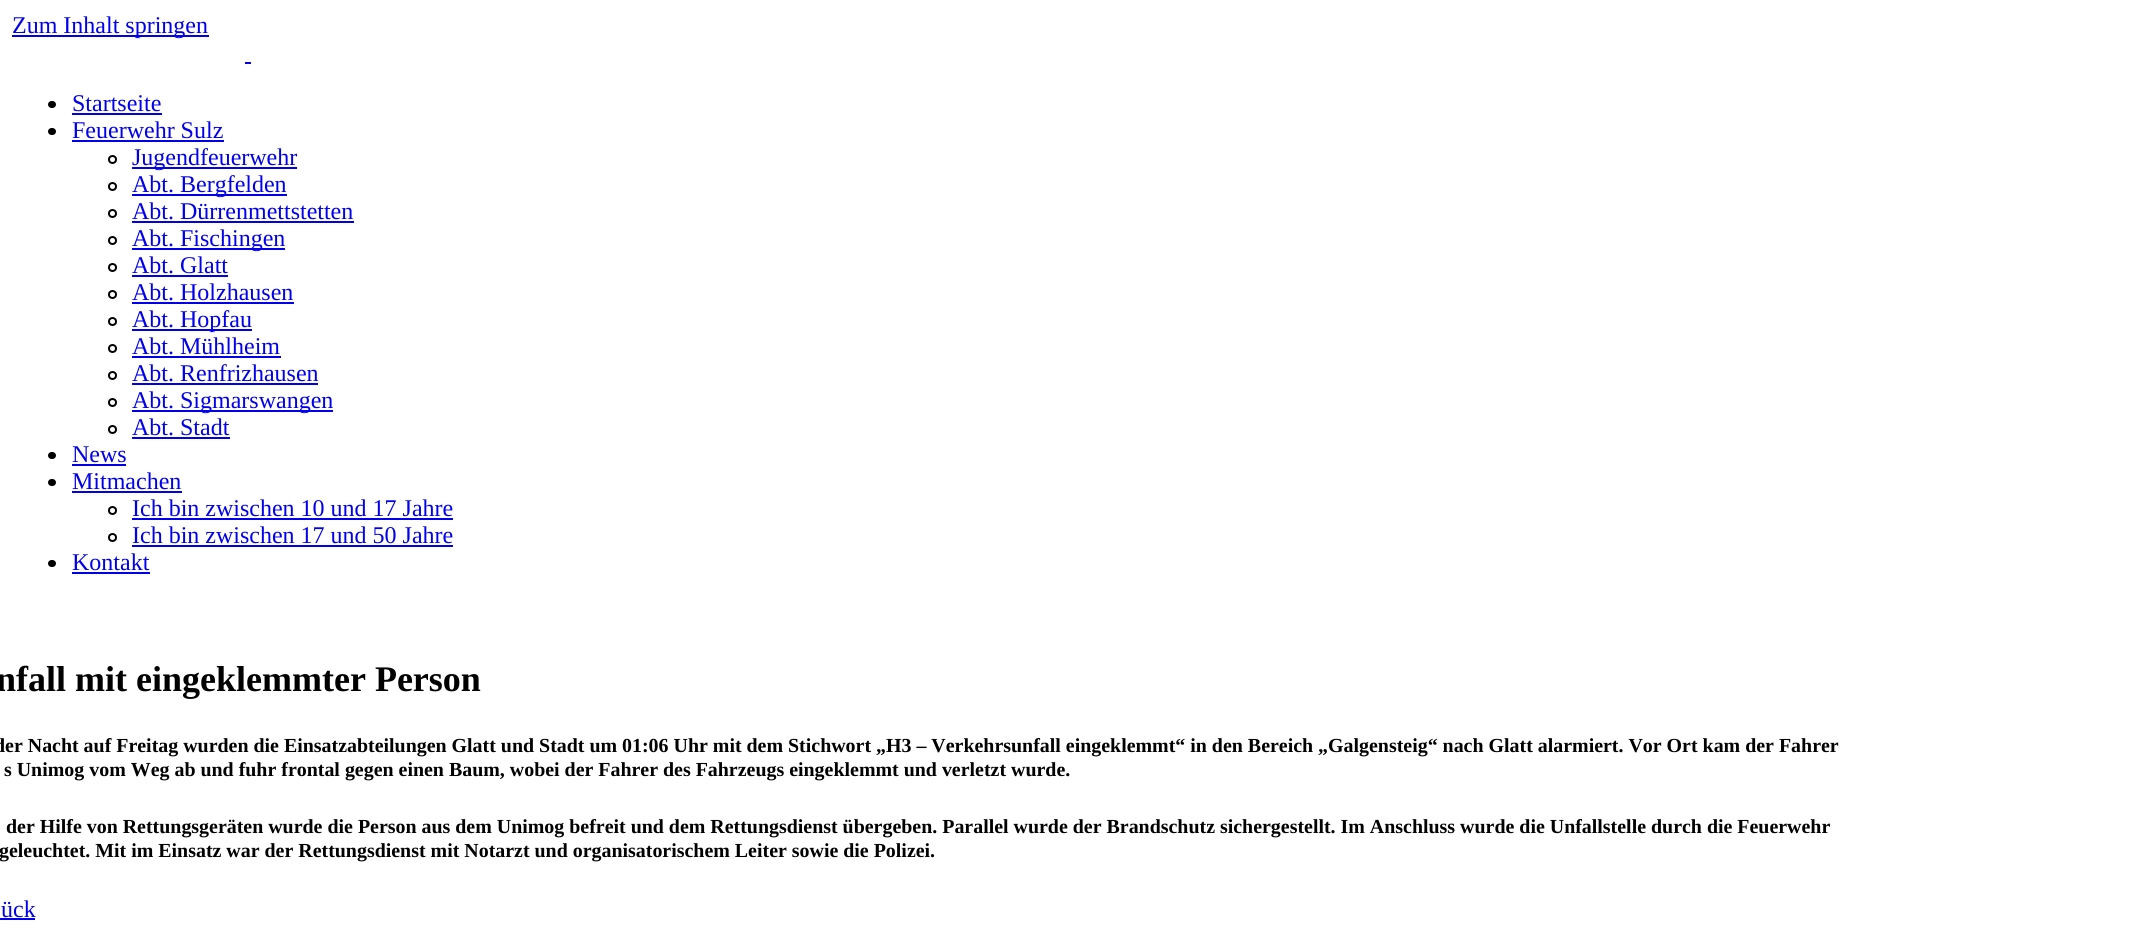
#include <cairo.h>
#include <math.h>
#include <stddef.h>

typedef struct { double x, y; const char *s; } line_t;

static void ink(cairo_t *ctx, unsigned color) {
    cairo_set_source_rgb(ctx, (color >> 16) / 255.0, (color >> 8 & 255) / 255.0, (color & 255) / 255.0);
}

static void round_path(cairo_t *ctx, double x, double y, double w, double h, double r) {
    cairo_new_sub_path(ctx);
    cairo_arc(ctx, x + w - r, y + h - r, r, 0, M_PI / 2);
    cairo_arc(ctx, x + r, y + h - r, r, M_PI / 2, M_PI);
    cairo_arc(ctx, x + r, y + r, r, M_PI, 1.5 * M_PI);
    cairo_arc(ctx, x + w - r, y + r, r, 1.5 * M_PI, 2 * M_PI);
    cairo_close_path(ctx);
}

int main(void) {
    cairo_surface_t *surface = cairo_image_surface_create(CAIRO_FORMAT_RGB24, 2129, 930);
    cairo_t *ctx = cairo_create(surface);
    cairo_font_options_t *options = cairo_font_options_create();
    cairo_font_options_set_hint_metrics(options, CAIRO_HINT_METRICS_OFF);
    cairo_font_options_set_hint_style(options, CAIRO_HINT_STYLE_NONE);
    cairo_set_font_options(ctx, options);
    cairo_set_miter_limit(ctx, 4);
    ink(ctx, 0xFFFFFF);
    cairo_paint(ctx);
    ink(ctx, 0x0000EE);
    cairo_rectangle(ctx, 12, 35, 197, 2);
    cairo_fill(ctx);
    cairo_select_font_face(ctx, "Liberation Serif", CAIRO_FONT_SLANT_NORMAL, CAIRO_FONT_WEIGHT_NORMAL);
    cairo_set_font_size(ctx, 24);
    cairo_move_to(ctx, 12, 33);
    cairo_show_text(ctx, "Zum Inhalt springen");
    cairo_rectangle(ctx, 245, 62, 6, 2);
    cairo_fill(ctx);
    ink(ctx, 0x000000);
    round_path(ctx, 48, 101, 8, 7, 3.5);
    cairo_fill(ctx);
    ink(ctx, 0x0000EE);
    cairo_move_to(ctx, 72, 111);
    cairo_show_text(ctx, "Startseite");
    cairo_rectangle(ctx, 72, 113, 90, 2);
    cairo_fill(ctx);
    ink(ctx, 0x000000);
    round_path(ctx, 48, 128, 8, 7, 3.5);
    cairo_fill(ctx);
    ink(ctx, 0x0000EE);
    cairo_move_to(ctx, 72, 138);
    cairo_show_text(ctx, "Feuerwehr Sulz");
    cairo_rectangle(ctx, 72, 140, 152, 2);
    cairo_fill(ctx);
    cairo_arc(ctx, 112.5, 159.5, 3.5, 0, 2 * M_PI);
    ink(ctx, 0x000000);
    cairo_stroke(ctx);
    ink(ctx, 0x0000EE);
    cairo_rectangle(ctx, 132, 167, 165, 2);
    cairo_fill(ctx);
    cairo_move_to(ctx, 132, 165);
    cairo_show_text(ctx, "Jugendfeuerwehr");
    cairo_new_path(ctx);
    cairo_arc(ctx, 112.5, 186.5, 3.5, 0, 2 * M_PI);
    ink(ctx, 0x000000);
    cairo_stroke(ctx);
    ink(ctx, 0x0000EE);
    cairo_rectangle(ctx, 132, 194, 155, 2);
    cairo_fill(ctx);
    cairo_move_to(ctx, 132, 192);
    cairo_show_text(ctx, "Abt. Bergfelden");
    cairo_new_path(ctx);
    cairo_arc(ctx, 112.5, 213.5, 3.5, 0, 2 * M_PI);
    ink(ctx, 0x000000);
    cairo_stroke(ctx);
    ink(ctx, 0x0000EE);
    cairo_move_to(ctx, 132, 219);
    cairo_show_text(ctx, "Abt. Dürrenmettstetten");
    cairo_rectangle(ctx, 132, 221, 222, 2);
    cairo_fill(ctx);
    cairo_arc(ctx, 112.5, 240.5, 3.5, 0, 2 * M_PI);
    ink(ctx, 0x000000);
    cairo_stroke(ctx);
    ink(ctx, 0x0000EE);
    cairo_rectangle(ctx, 132, 248, 153, 2);
    cairo_fill(ctx);
    cairo_move_to(ctx, 132, 246);
    cairo_show_text(ctx, "Abt. Fischingen");
    cairo_new_path(ctx);
    cairo_arc(ctx, 112.5, 267.5, 3.5, 0, 2 * M_PI);
    ink(ctx, 0x000000);
    cairo_stroke(ctx);
    ink(ctx, 0x0000EE);
    cairo_move_to(ctx, 132, 273);
    cairo_show_text(ctx, "Abt. Glatt");
    cairo_rectangle(ctx, 132, 275, 96, 2);
    cairo_fill(ctx);
    cairo_arc(ctx, 112.5, 294.5, 3.5, 0, 2 * M_PI);
    ink(ctx, 0x000000);
    cairo_stroke(ctx);
    ink(ctx, 0x0000EE);
    cairo_move_to(ctx, 132, 300);
    cairo_show_text(ctx, "Abt. Holzhausen");
    cairo_rectangle(ctx, 132, 302, 162, 2);
    cairo_fill(ctx);
    cairo_arc(ctx, 112.5, 321.5, 3.5, 0, 2 * M_PI);
    ink(ctx, 0x000000);
    cairo_stroke(ctx);
    ink(ctx, 0x0000EE);
    cairo_rectangle(ctx, 132, 329, 120, 2);
    cairo_fill(ctx);
    cairo_move_to(ctx, 132, 327);
    cairo_show_text(ctx, "Abt. Hopfau");
    cairo_new_path(ctx);
    cairo_arc(ctx, 112.5, 348.5, 3.5, 0, 2 * M_PI);
    ink(ctx, 0x000000);
    cairo_stroke(ctx);
    ink(ctx, 0x0000EE);
    cairo_move_to(ctx, 132, 354);
    cairo_show_text(ctx, "Abt. Mühlheim");
    cairo_rectangle(ctx, 132, 356, 149, 2);
    cairo_fill(ctx);
    cairo_arc(ctx, 112.5, 375.5, 3.5, 0, 2 * M_PI);
    ink(ctx, 0x000000);
    cairo_stroke(ctx);
    ink(ctx, 0x0000EE);
    cairo_move_to(ctx, 132, 381);
    cairo_show_text(ctx, "Abt. Renfrizhausen");
    cairo_rectangle(ctx, 132, 383, 186, 2);
    cairo_fill(ctx);
    cairo_arc(ctx, 112.5, 402.5, 3.5, 0, 2 * M_PI);
    ink(ctx, 0x000000);
    cairo_stroke(ctx);
    ink(ctx, 0x0000EE);
    cairo_rectangle(ctx, 132, 410, 201, 2);
    cairo_fill(ctx);
    cairo_move_to(ctx, 132, 408);
    cairo_show_text(ctx, "Abt. Sigmarswangen");
    cairo_new_path(ctx);
    cairo_arc(ctx, 112.5, 429.5, 3.5, 0, 2 * M_PI);
    ink(ctx, 0x000000);
    cairo_stroke(ctx);
    ink(ctx, 0x0000EE);
    cairo_move_to(ctx, 132, 435);
    cairo_show_text(ctx, "Abt. Stadt");
    cairo_rectangle(ctx, 132, 437, 98, 2);
    cairo_fill(ctx);
    ink(ctx, 0x000000);
    round_path(ctx, 48, 452, 8, 7, 3.5);
    cairo_fill(ctx);
    ink(ctx, 0x0000EE);
    cairo_move_to(ctx, 72, 462);
    cairo_show_text(ctx, "News");
    cairo_rectangle(ctx, 72, 464, 54, 2);
    cairo_fill(ctx);
    ink(ctx, 0x000000);
    round_path(ctx, 48, 479, 8, 7, 3.5);
    cairo_fill(ctx);
    ink(ctx, 0x0000EE);
    cairo_move_to(ctx, 72, 489);
    cairo_show_text(ctx, "Mitmachen");
    cairo_rectangle(ctx, 72, 491, 110, 2);
    cairo_fill(ctx);
    cairo_arc(ctx, 112.5, 510.5, 3.5, 0, 2 * M_PI);
    ink(ctx, 0x000000);
    cairo_stroke(ctx);
    ink(ctx, 0x0000EE);
    cairo_move_to(ctx, 132, 516);
    cairo_show_text(ctx, "Ich bin zwischen 10 und 17 Jahre");
    cairo_rectangle(ctx, 132, 518, 321, 2);
    cairo_fill(ctx);
    cairo_arc(ctx, 112.5, 537.5, 3.5, 0, 2 * M_PI);
    ink(ctx, 0x000000);
    cairo_stroke(ctx);
    ink(ctx, 0x0000EE);
    cairo_move_to(ctx, 132, 543);
    cairo_show_text(ctx, "Ich bin zwischen 17 und 50 Jahre");
    cairo_rectangle(ctx, 132, 545, 321, 2);
    cairo_fill(ctx);
    ink(ctx, 0x000000);
    round_path(ctx, 48, 560, 8, 7, 3.5);
    cairo_fill(ctx);
    ink(ctx, 0x0000EE);
    cairo_move_to(ctx, 72, 570);
    cairo_show_text(ctx, "Kontakt");
    cairo_rectangle(ctx, 72, 572, 78, 2);
    cairo_fill(ctx);
    cairo_select_font_face(ctx, "Liberation Serif", CAIRO_FONT_SLANT_NORMAL, CAIRO_FONT_WEIGHT_BOLD);
    cairo_set_font_size(ctx, 36);
    ink(ctx, 0x000000);
    cairo_move_to(ctx, -4, 691);
    cairo_show_text(ctx, "nfall mit eingeklemmter Person");
    cairo_set_font_size(ctx, 19.92);
    {
        static const line_t items[] = {
            {-6, 752, "der Nacht auf Freitag wurden die Einsatzabteilungen Glatt und Stadt um 01:06 Uhr mit dem Stichwort „H3 – Verkehrsunfall eingeklemmt“ in den Bereich „Galgensteig“ nach Glatt alarmiert. Vor Ort kam der Fahrer"},
            {4, 776, "s Unimog vom Weg ab und fuhr frontal gegen einen Baum, wobei der Fahrer des Fahrzeugs eingeklemmt und verletzt wurde."},
            {6, 833, "der Hilfe von Rettungsgeräten wurde die Person aus dem Unimog befreit und dem Rettungsdienst übergeben. Parallel wurde der Brandschutz sichergestellt. Im Anschluss wurde die Unfallstelle durch die Feuerwehr"},
            {-1, 857, "geleuchtet. Mit im Einsatz war der Rettungsdienst mit Notarzt und organisatorischem Leiter sowie die Polizei."},
        };
        for (size_t i = 0; i < sizeof items / sizeof *items; i++) {
            cairo_move_to(ctx, items[i].x, items[i].y);
            cairo_show_text(ctx, items[i].s);
        }
    }
    cairo_select_font_face(ctx, "Liberation Serif", CAIRO_FONT_SLANT_NORMAL, CAIRO_FONT_WEIGHT_NORMAL);
    cairo_set_font_size(ctx, 24);
    ink(ctx, 0x0000EE);
    cairo_move_to(ctx, 1, 917);
    cairo_show_text(ctx, "ück");
    cairo_rectangle(ctx, 0, 918, 35, 2);
    cairo_fill(ctx);
    cairo_surface_write_to_png(surface, "image.png");
    cairo_font_options_destroy(options);
    cairo_destroy(ctx);
    cairo_surface_destroy(surface);
    return 0;
}
